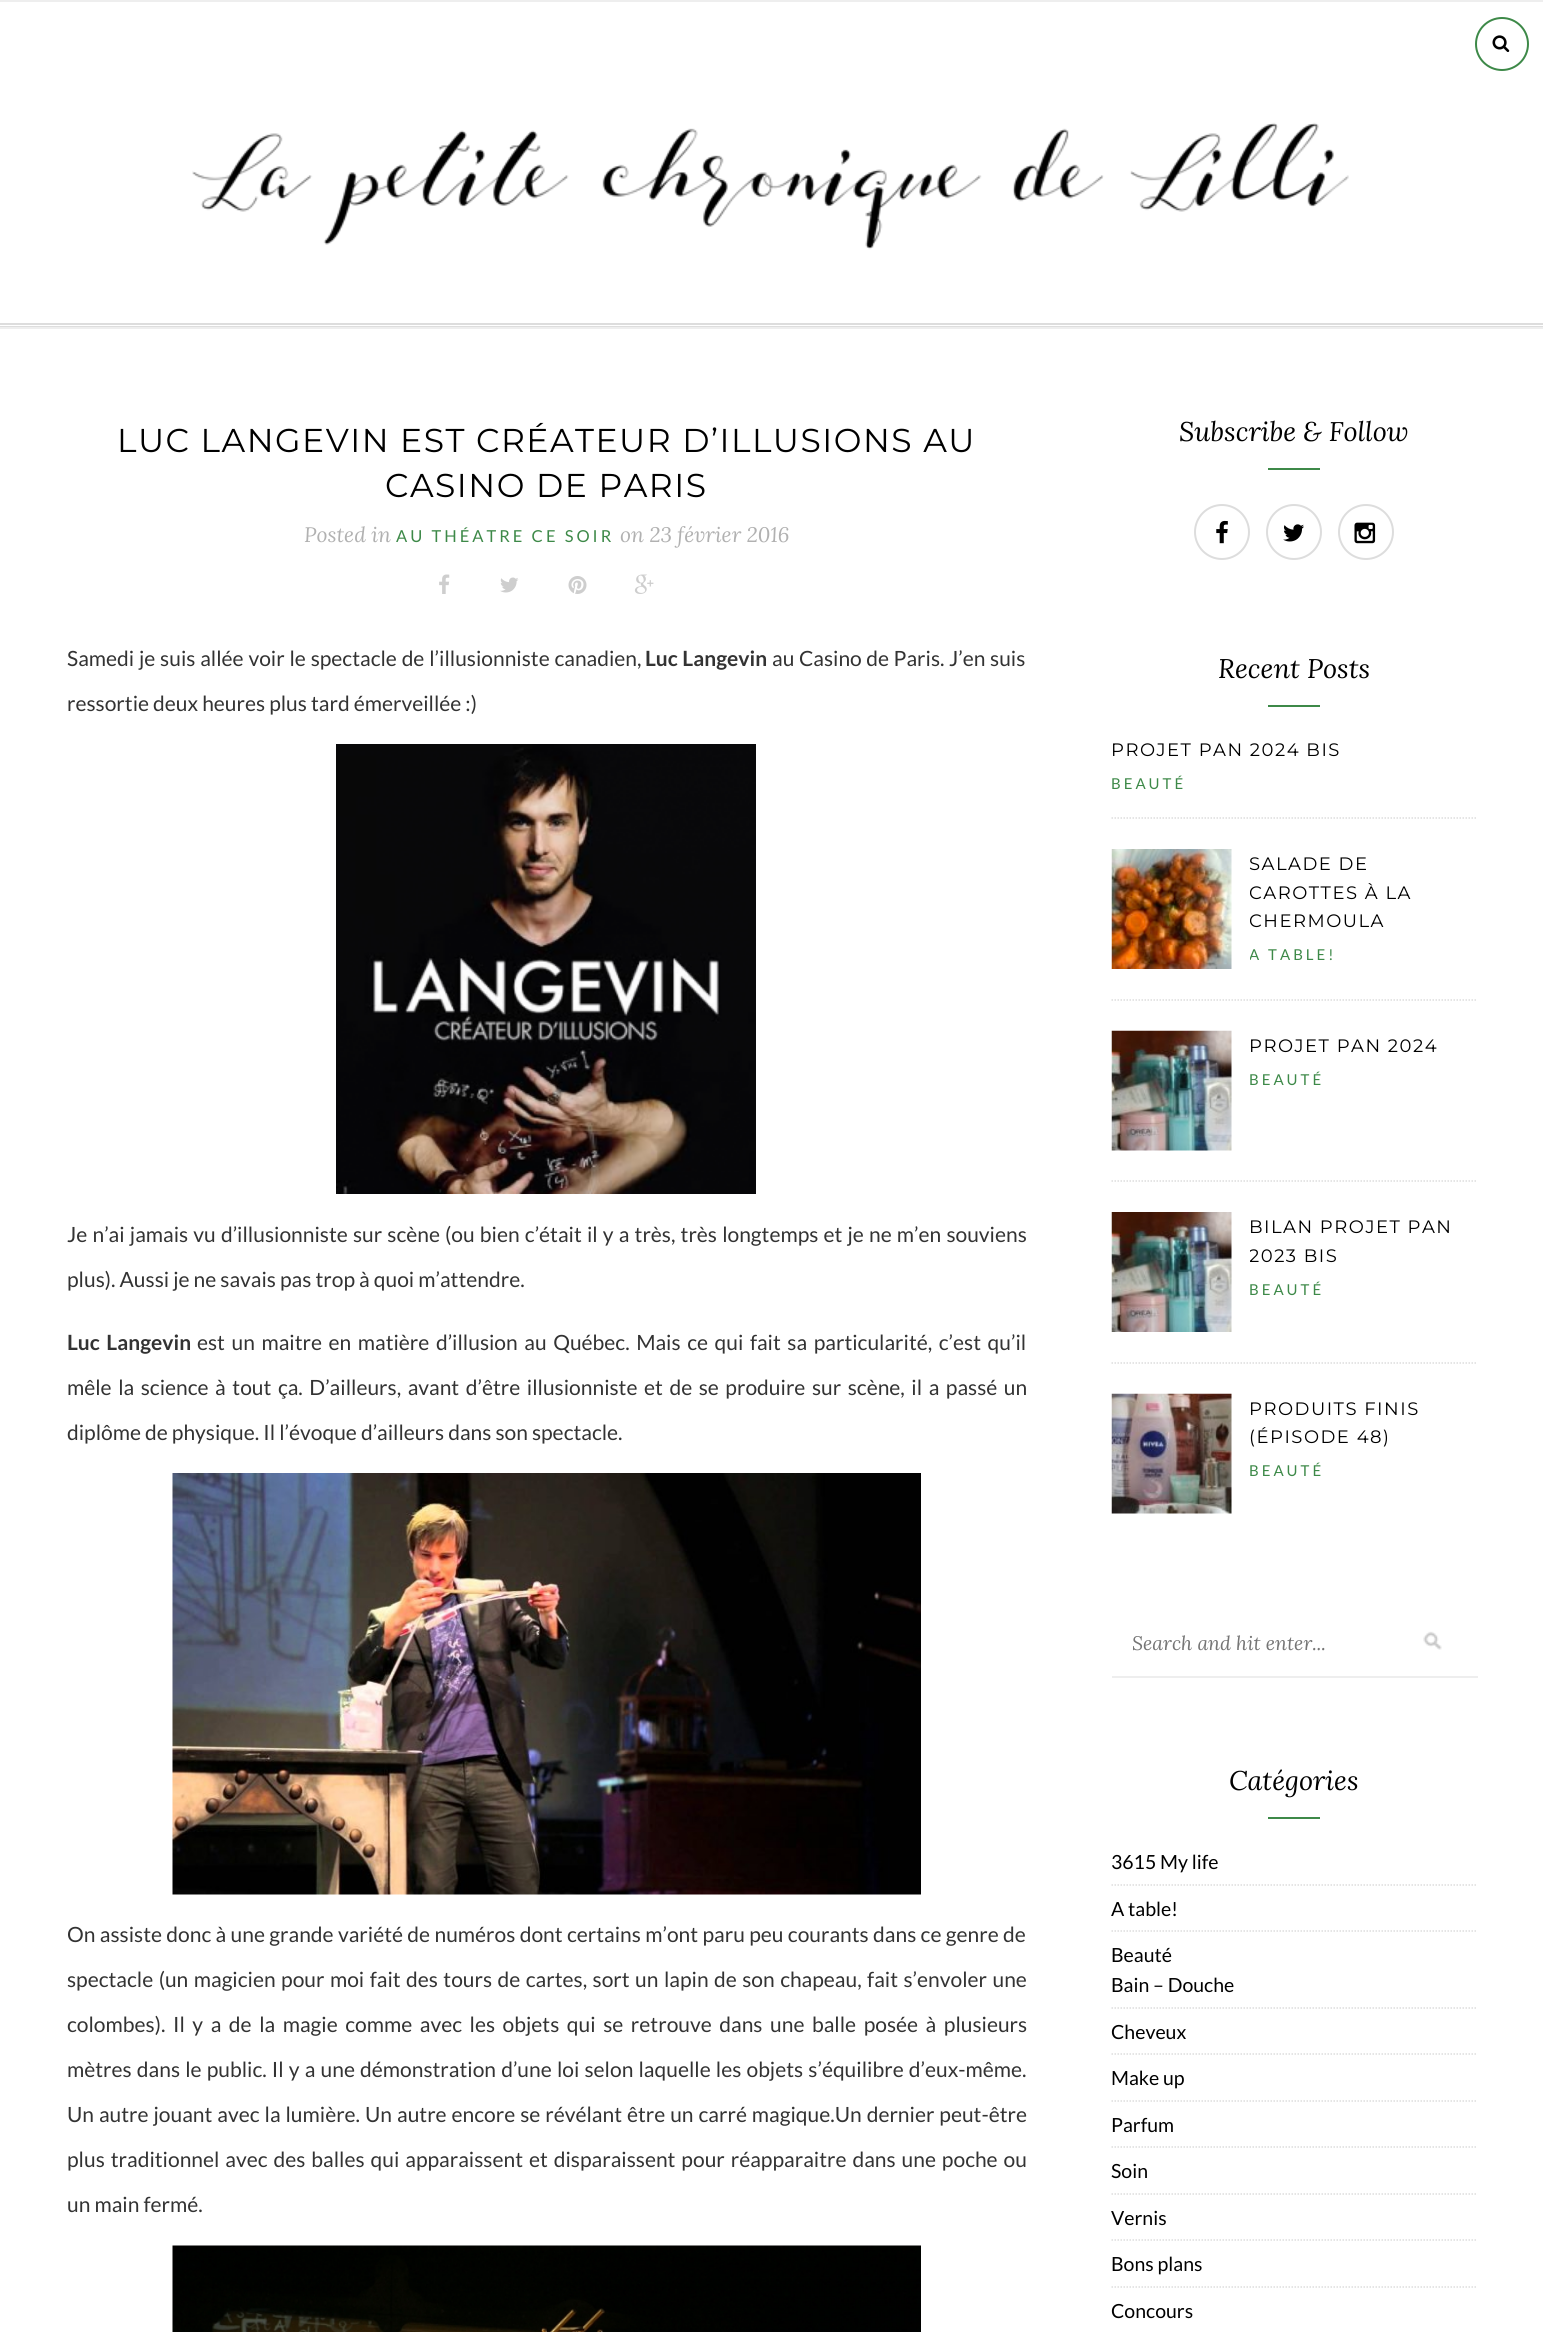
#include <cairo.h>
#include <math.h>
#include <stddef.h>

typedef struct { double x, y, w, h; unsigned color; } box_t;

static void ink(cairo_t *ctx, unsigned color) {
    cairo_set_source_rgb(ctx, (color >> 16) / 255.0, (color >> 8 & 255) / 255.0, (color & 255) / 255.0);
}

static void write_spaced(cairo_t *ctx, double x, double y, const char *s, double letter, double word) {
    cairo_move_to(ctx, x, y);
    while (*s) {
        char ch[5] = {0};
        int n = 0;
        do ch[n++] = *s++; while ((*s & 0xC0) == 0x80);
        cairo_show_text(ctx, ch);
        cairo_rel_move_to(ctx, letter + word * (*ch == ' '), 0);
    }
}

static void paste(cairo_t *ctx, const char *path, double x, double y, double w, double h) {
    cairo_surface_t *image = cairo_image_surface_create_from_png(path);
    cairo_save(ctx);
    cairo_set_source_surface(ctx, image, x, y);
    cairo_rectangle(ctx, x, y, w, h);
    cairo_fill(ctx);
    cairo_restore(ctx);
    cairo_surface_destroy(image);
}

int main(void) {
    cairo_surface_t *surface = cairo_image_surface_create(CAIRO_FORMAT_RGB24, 1543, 2332);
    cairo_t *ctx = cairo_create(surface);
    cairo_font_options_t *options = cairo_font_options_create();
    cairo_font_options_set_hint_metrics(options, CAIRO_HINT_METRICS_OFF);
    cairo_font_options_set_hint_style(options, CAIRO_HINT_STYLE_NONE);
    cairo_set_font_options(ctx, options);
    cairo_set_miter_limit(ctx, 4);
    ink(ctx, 0xFFFFFF);
    cairo_paint(ctx);
    ink(ctx, 0xEEEEEE);
    cairo_rectangle(ctx, 0, 0, 1543, 2);
    cairo_fill(ctx);
    cairo_arc(ctx, 1502, 44, 26, 0, 2 * M_PI);
    ink(ctx, 0x3D8948);
    cairo_stroke(ctx);
    paste(ctx, "media/1.png", 1492, 35, 18, 17);
    paste(ctx, "media/2.png", 192, 122, 1157, 128);
    {
        static const box_t items[] = {
            {0, 323, 1543, 2, 0xDDDDDD},
            {0, 326, 1543, 1, 0xDDDDDD},
            {0, 327, 1543, 2, 0xEEEEEE},
        };
        for (size_t i = 0; i < sizeof items / sizeof *items; i++) {
            ink(ctx, items[i].color);
            cairo_rectangle(ctx, items[i].x, items[i].y, items[i].w, items[i].h);
            cairo_fill(ctx);
        }
    }
    cairo_select_font_face(ctx, "Montserrat Thin", CAIRO_FONT_SLANT_NORMAL, CAIRO_FONT_WEIGHT_NORMAL);
    cairo_set_font_size(ctx, 33);
    ink(ctx, 0x000000);
    write_spaced(ctx, 117, 452, "LUC LANGEVIN EST CRÉATEUR D’ILLUSIONS AU", 1.5, 0);
    write_spaced(ctx, 385, 497, "CASINO DE PARIS", 1.5, 0);
    cairo_select_font_face(ctx, "Lora", CAIRO_FONT_SLANT_ITALIC, CAIRO_FONT_WEIGHT_NORMAL);
    cairo_set_font_size(ctx, 21);
    ink(ctx, 0xB1B1B1);
    cairo_move_to(ctx, 304, 542);
    cairo_show_text(ctx, "Posted in");
    cairo_select_font_face(ctx, "Lato", CAIRO_FONT_SLANT_NORMAL, CAIRO_FONT_WEIGHT_NORMAL);
    cairo_set_font_size(ctx, 16.5);
    ink(ctx, 0x3D8948);
    write_spaced(ctx, 396, 542, "AU THÉATRE CE SOIR", 3, 0);
    cairo_select_font_face(ctx, "Lora", CAIRO_FONT_SLANT_ITALIC, CAIRO_FONT_WEIGHT_NORMAL);
    cairo_set_font_size(ctx, 21);
    ink(ctx, 0xB1B1B1);
    cairo_move_to(ctx, 620, 542);
    cairo_show_text(ctx, "on 23 février 2016");
    paste(ctx, "media/3.png", 439, 574, 11, 20);
    paste(ctx, "media/4.png", 500, 577, 19, 16);
    paste(ctx, "media/5.png", 568, 576, 19, 18);
    paste(ctx, "media/6.png", 634, 574, 20, 20);
    cairo_select_font_face(ctx, "Lato", CAIRO_FONT_SLANT_NORMAL, CAIRO_FONT_WEIGHT_NORMAL);
    ink(ctx, 0x333333);
    write_spaced(ctx, 67, 666, "Samedi je suis allée voir le spectacle de l’illusionniste canadien,", 0, 0.75);
    cairo_select_font_face(ctx, "Lato", CAIRO_FONT_SLANT_NORMAL, CAIRO_FONT_WEIGHT_BOLD);
    write_spaced(ctx, 645, 666, "Luc Langevin", 0, 0.5);
    cairo_select_font_face(ctx, "Lato", CAIRO_FONT_SLANT_NORMAL, CAIRO_FONT_WEIGHT_NORMAL);
    write_spaced(ctx, 772, 666, "au Casino de Paris. J’en suis", 0, 0.5);
    cairo_move_to(ctx, 67, 711);
    cairo_show_text(ctx, "ressortie deux heures plus tard émerveillée :)");
    paste(ctx, "media/7.png", 336, 744, 420, 450);
    write_spaced(ctx, 67, 1242, "Je n’ai jamais vu d’illusionniste sur scène (ou bien c’était il y a très, très longtemps et je ne m’en souviens", 0, 1.1);
    cairo_move_to(ctx, 67, 1287);
    cairo_show_text(ctx, "plus). Aussi je ne savais pas trop à quoi m’attendre.");
    cairo_select_font_face(ctx, "Lato", CAIRO_FONT_SLANT_NORMAL, CAIRO_FONT_WEIGHT_BOLD);
    write_spaced(ctx, 67, 1350, "Luc Langevin", 0, 2.5);
    cairo_select_font_face(ctx, "Lato", CAIRO_FONT_SLANT_NORMAL, CAIRO_FONT_WEIGHT_NORMAL);
    write_spaced(ctx, 197, 1350, "est un maitre en matière d’illusion au Québec. Mais ce qui fait sa particularité, c’est qu’il", 0, 2.5);
    write_spaced(ctx, 67, 1395, "mêle la science à tout ça. D’ailleurs, avant d’être illusionniste et de se produire sur scène, il a passé un", 0, 2.5);
    cairo_move_to(ctx, 67, 1440);
    cairo_show_text(ctx, "diplôme de physique. Il l’évoque d’ailleurs dans son spectacle.");
    paste(ctx, "media/8.png", 172, 1473, 749, 422);
    write_spaced(ctx, 67, 1942, "On assiste donc à une grande variété de numéros dont certains m’ont paru peu courants dans ce genre de", 0, 0.3);
    write_spaced(ctx, 67, 1987, "spectacle (un magicien pour moi fait des tours de cartes, sort un lapin de son chapeau, fait s’envoler une", 0, 1.4);
    write_spaced(ctx, 67, 2032, "colombes). Il y a de la magie comme avec les objets qui se retrouve dans une balle posée à plusieurs", 0, 3.5);
    write_spaced(ctx, 67, 2077, "mètres dans le public. Il y a une démonstration d’une loi selon laquelle les objets s’équilibre d’eux-même.", 0, 1.1);
    write_spaced(ctx, 67, 2122, "Un autre jouant avec la lumière. Un autre encore se révélant être un carré magique.Un dernier peut-être", 0, 0.9);
    write_spaced(ctx, 67, 2167, "plus traditionnel avec des balles qui apparaissent et disparaissent pour réapparaitre dans une poche ou", 0, 1.9);
    cairo_move_to(ctx, 67, 2212);
    cairo_show_text(ctx, "un main fermé.");
    paste(ctx, "media/9.png", 172, 2245, 749, 87);
    cairo_select_font_face(ctx, "Lora", CAIRO_FONT_SLANT_ITALIC, CAIRO_FONT_WEIGHT_NORMAL);
    cairo_set_font_size(ctx, 27);
    ink(ctx, 0x000000);
    cairo_move_to(ctx, 1179, 441);
    cairo_show_text(ctx, "Subscribe & Follow");
    ink(ctx, 0x3D8948);
    cairo_rectangle(ctx, 1268, 468, 52, 2);
    cairo_fill(ctx);
    cairo_arc(ctx, 1222, 532, 27, 0, 2 * M_PI);
    ink(ctx, 0xDDDDDD);
    cairo_stroke(ctx);
    paste(ctx, "media/10.png", 1216, 520, 12, 24);
    cairo_arc(ctx, 1294, 532, 27, 0, 2 * M_PI);
    cairo_stroke(ctx);
    paste(ctx, "media/11.png", 1283, 524, 21, 18);
    cairo_arc(ctx, 1366, 532, 27, 0, 2 * M_PI);
    cairo_stroke(ctx);
    paste(ctx, "media/12.png", 1354, 522, 22, 22);
    ink(ctx, 0x000000);
    cairo_move_to(ctx, 1218, 678);
    cairo_show_text(ctx, "Recent Posts");
    ink(ctx, 0x3D8948);
    cairo_rectangle(ctx, 1268, 705, 52, 2);
    cairo_fill(ctx);
    cairo_new_path(ctx);
    cairo_move_to(ctx, 1111.5, 818);
    cairo_line_to(ctx, 1477.5, 818);
    ink(ctx, 0xDDDDDD);
    cairo_set_line_width(ctx, 1.5);
    cairo_set_dash(ctx, (double[]){1.5, 1.5}, 2, 0);
    cairo_stroke(ctx);
    cairo_select_font_face(ctx, "Montserrat Thin", CAIRO_FONT_SLANT_NORMAL, CAIRO_FONT_WEIGHT_NORMAL);
    cairo_set_font_size(ctx, 18);
    ink(ctx, 0x000000);
    write_spaced(ctx, 1111, 756, "PROJET PAN 2024 BIS", 1.5, 0);
    cairo_select_font_face(ctx, "Lato", CAIRO_FONT_SLANT_NORMAL, CAIRO_FONT_WEIGHT_NORMAL);
    cairo_set_font_size(ctx, 15);
    ink(ctx, 0x3D8948);
    write_spaced(ctx, 1111, 789, "BEAUTÉ", 3, 0);
    cairo_new_path(ctx);
    cairo_move_to(ctx, 1111.5, 1000);
    cairo_line_to(ctx, 1477.5, 1000);
    ink(ctx, 0xDDDDDD);
    cairo_stroke(ctx);
    paste(ctx, "media/13.png", 1111, 849, 121, 120);
    cairo_select_font_face(ctx, "Montserrat Thin", CAIRO_FONT_SLANT_NORMAL, CAIRO_FONT_WEIGHT_NORMAL);
    cairo_set_font_size(ctx, 18);
    ink(ctx, 0x000000);
    write_spaced(ctx, 1249, 870, "SALADE DE", 1.5, 0);
    cairo_save(ctx);
    cairo_rectangle(ctx, 1250, 849, 228, 117);
    cairo_clip(ctx);
    write_spaced(ctx, 1249, 899, "CAROTTES À LA", 1.5, 0);
    write_spaced(ctx, 1249, 927, "CHERMOULA", 1.5, 0);
    cairo_select_font_face(ctx, "Lato", CAIRO_FONT_SLANT_NORMAL, CAIRO_FONT_WEIGHT_NORMAL);
    cairo_set_font_size(ctx, 15);
    ink(ctx, 0x3D8948);
    write_spaced(ctx, 1249, 960, "A TABLE!", 3, 0);
    cairo_restore(ctx);
    cairo_new_path(ctx);
    cairo_move_to(ctx, 1111.5, 1181);
    cairo_line_to(ctx, 1477.5, 1181);
    ink(ctx, 0xDDDDDD);
    cairo_stroke(ctx);
    paste(ctx, "media/14.png", 1111, 1030, 121, 121);
    ink(ctx, 0x000000);
    write_spaced(ctx, 1249, 1052, "PROJET PAN 2024", 1.5, 0);
    cairo_select_font_face(ctx, "Lato", CAIRO_FONT_SLANT_NORMAL, CAIRO_FONT_WEIGHT_NORMAL);
    cairo_set_font_size(ctx, 15);
    ink(ctx, 0x3D8948);
    write_spaced(ctx, 1249, 1085, "BEAUTÉ", 3, 0);
    cairo_new_path(ctx);
    cairo_move_to(ctx, 1111.5, 1363);
    cairo_line_to(ctx, 1477.5, 1363);
    ink(ctx, 0xDDDDDD);
    cairo_stroke(ctx);
    paste(ctx, "media/15.png", 1111, 1212, 121, 120);
    cairo_select_font_face(ctx, "Montserrat Thin", CAIRO_FONT_SLANT_NORMAL, CAIRO_FONT_WEIGHT_NORMAL);
    cairo_set_font_size(ctx, 18);
    ink(ctx, 0x000000);
    write_spaced(ctx, 1249, 1233, "BILAN PROJET PAN", 1.5, 0);
    cairo_save(ctx);
    cairo_rectangle(ctx, 1250, 1212, 228, 89);
    cairo_clip(ctx);
    write_spaced(ctx, 1249, 1262, "2023 BIS", 1.5, 0);
    cairo_restore(ctx);
    cairo_select_font_face(ctx, "Lato", CAIRO_FONT_SLANT_NORMAL, CAIRO_FONT_WEIGHT_NORMAL);
    cairo_set_font_size(ctx, 15);
    ink(ctx, 0x3D8948);
    write_spaced(ctx, 1249, 1295, "BEAUTÉ", 3, 0);
    paste(ctx, "media/16.png", 1111, 1393, 121, 121);
    cairo_select_font_face(ctx, "Montserrat Thin", CAIRO_FONT_SLANT_NORMAL, CAIRO_FONT_WEIGHT_NORMAL);
    cairo_set_font_size(ctx, 18);
    ink(ctx, 0x000000);
    write_spaced(ctx, 1249, 1415, "PRODUITS FINIS", 1.5, 0);
    write_spaced(ctx, 1249, 1443, "(ÉPISODE 48)", 1.5, 0);
    cairo_select_font_face(ctx, "Lato", CAIRO_FONT_SLANT_NORMAL, CAIRO_FONT_WEIGHT_NORMAL);
    cairo_set_font_size(ctx, 15);
    ink(ctx, 0x3D8948);
    write_spaced(ctx, 1249, 1476, "BEAUTÉ", 3, 0);
    paste(ctx, "media/17.png", 1423, 1631, 19, 19);
    ink(ctx, 0xEEEEEE);
    cairo_rectangle(ctx, 1112, 1676, 366, 2);
    cairo_fill(ctx);
    cairo_save(ctx);
    cairo_rectangle(ctx, 1133, 1631, 324, 25);
    cairo_clip(ctx);
    cairo_select_font_face(ctx, "Lora", CAIRO_FONT_SLANT_ITALIC, CAIRO_FONT_WEIGHT_NORMAL);
    cairo_set_font_size(ctx, 19.5);
    ink(ctx, 0x757575);
    cairo_move_to(ctx, 1132, 1650);
    cairo_show_text(ctx, "Search and hit enter...");
    cairo_restore(ctx);
    cairo_select_font_face(ctx, "Lora", CAIRO_FONT_SLANT_ITALIC, CAIRO_FONT_WEIGHT_NORMAL);
    cairo_set_font_size(ctx, 27);
    ink(ctx, 0x000000);
    cairo_move_to(ctx, 1229, 1790);
    cairo_show_text(ctx, "Catégories");
    ink(ctx, 0x3D8948);
    cairo_rectangle(ctx, 1268, 1817, 52, 2);
    cairo_fill(ctx);
    cairo_new_path(ctx);
    cairo_move_to(ctx, 1111.5, 1885);
    cairo_line_to(ctx, 1477.5, 1885);
    ink(ctx, 0xDDDDDD);
    cairo_stroke(ctx);
    cairo_select_font_face(ctx, "Lato", CAIRO_FONT_SLANT_NORMAL, CAIRO_FONT_WEIGHT_NORMAL);
    cairo_set_font_size(ctx, 19.5);
    ink(ctx, 0x000000);
    cairo_move_to(ctx, 1111, 1869);
    cairo_show_text(ctx, "3615 My life");
    cairo_new_path(ctx);
    cairo_move_to(ctx, 1111.5, 1931);
    cairo_line_to(ctx, 1477.5, 1931);
    ink(ctx, 0xDDDDDD);
    cairo_stroke(ctx);
    ink(ctx, 0x000000);
    cairo_move_to(ctx, 1111, 1916);
    cairo_show_text(ctx, "A table!");
    cairo_new_path(ctx);
    cairo_move_to(ctx, 1111.5, 2240);
    cairo_line_to(ctx, 1477.5, 2240);
    ink(ctx, 0xDDDDDD);
    cairo_stroke(ctx);
    ink(ctx, 0x000000);
    cairo_move_to(ctx, 1111, 1962);
    cairo_show_text(ctx, "Beauté");
    cairo_new_path(ctx);
    cairo_move_to(ctx, 1111.5, 2008);
    cairo_line_to(ctx, 1477.5, 2008);
    ink(ctx, 0xDDDDDD);
    cairo_stroke(ctx);
    ink(ctx, 0x000000);
    cairo_move_to(ctx, 1111, 1992);
    cairo_show_text(ctx, "Bain – Douche");
    cairo_new_path(ctx);
    cairo_move_to(ctx, 1111.5, 2054);
    cairo_line_to(ctx, 1477.5, 2054);
    ink(ctx, 0xDDDDDD);
    cairo_stroke(ctx);
    ink(ctx, 0x000000);
    cairo_move_to(ctx, 1111, 2039);
    cairo_show_text(ctx, "Cheveux");
    cairo_new_path(ctx);
    cairo_move_to(ctx, 1111.5, 2101);
    cairo_line_to(ctx, 1477.5, 2101);
    ink(ctx, 0xDDDDDD);
    cairo_stroke(ctx);
    ink(ctx, 0x000000);
    cairo_move_to(ctx, 1111, 2085);
    cairo_show_text(ctx, "Make up");
    cairo_new_path(ctx);
    cairo_move_to(ctx, 1111.5, 2147);
    cairo_line_to(ctx, 1477.5, 2147);
    ink(ctx, 0xDDDDDD);
    cairo_stroke(ctx);
    ink(ctx, 0x000000);
    cairo_move_to(ctx, 1111, 2132);
    cairo_show_text(ctx, "Parfum");
    cairo_new_path(ctx);
    cairo_move_to(ctx, 1111.5, 2194);
    cairo_line_to(ctx, 1477.5, 2194);
    ink(ctx, 0xDDDDDD);
    cairo_stroke(ctx);
    ink(ctx, 0x000000);
    cairo_move_to(ctx, 1111, 2178);
    cairo_show_text(ctx, "Soin");
    cairo_move_to(ctx, 1111, 2225);
    cairo_show_text(ctx, "Vernis");
    cairo_new_path(ctx);
    cairo_move_to(ctx, 1111.5, 2287);
    cairo_line_to(ctx, 1477.5, 2287);
    ink(ctx, 0xDDDDDD);
    cairo_stroke(ctx);
    ink(ctx, 0x000000);
    cairo_move_to(ctx, 1111, 2271);
    cairo_show_text(ctx, "Bons plans");
    cairo_move_to(ctx, 1111, 2318);
    cairo_show_text(ctx, "Concours");
    cairo_surface_write_to_png(surface, "image.png");
    cairo_font_options_destroy(options);
    cairo_destroy(ctx);
    cairo_surface_destroy(surface);
    return 0;
}
